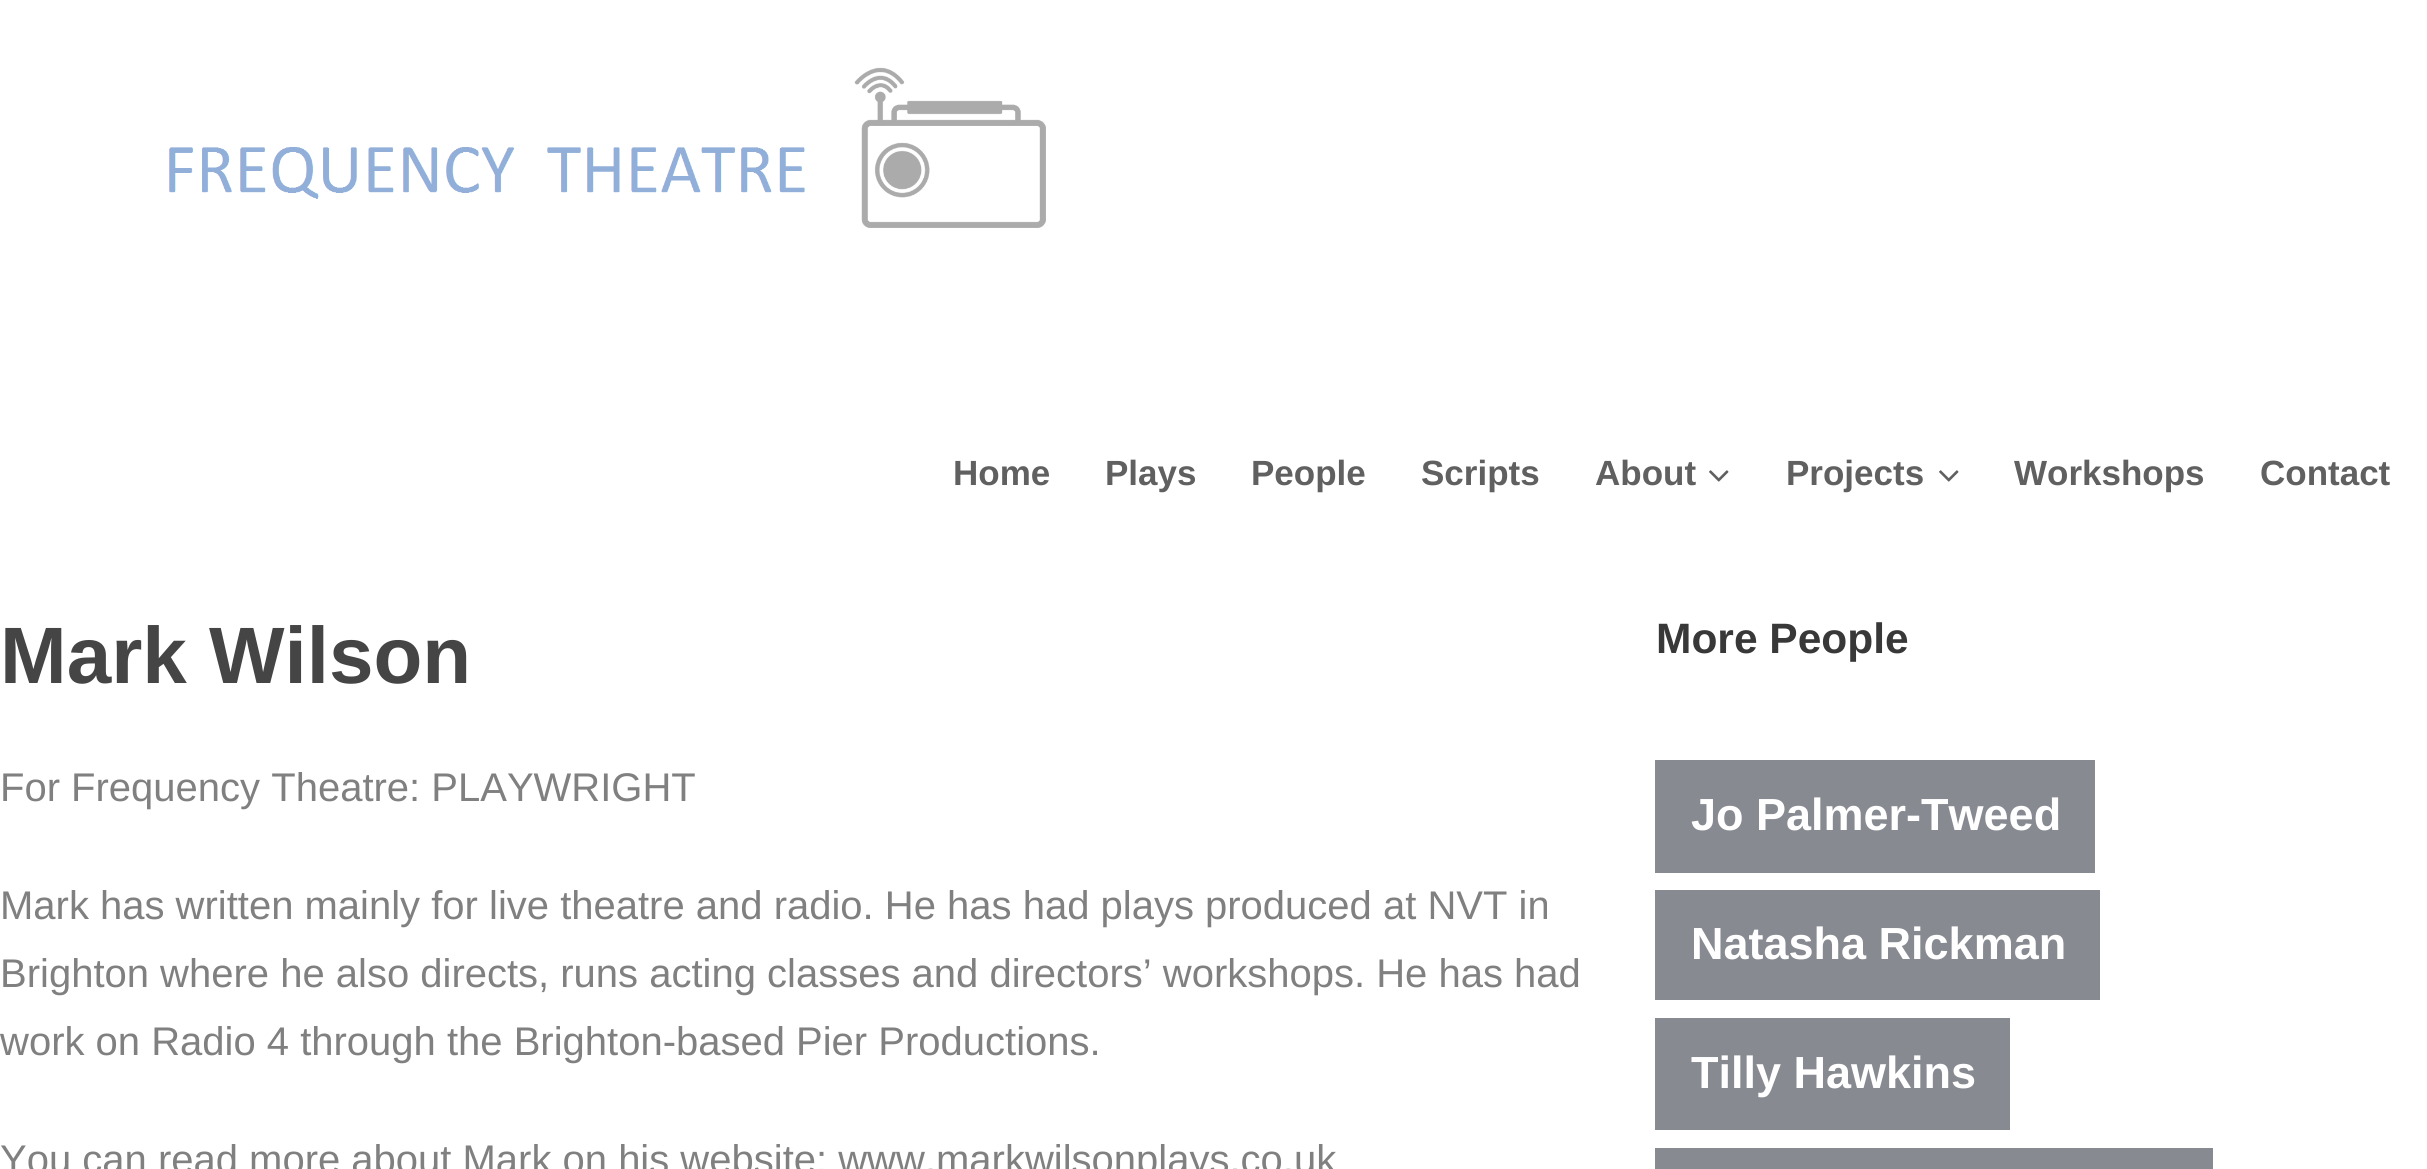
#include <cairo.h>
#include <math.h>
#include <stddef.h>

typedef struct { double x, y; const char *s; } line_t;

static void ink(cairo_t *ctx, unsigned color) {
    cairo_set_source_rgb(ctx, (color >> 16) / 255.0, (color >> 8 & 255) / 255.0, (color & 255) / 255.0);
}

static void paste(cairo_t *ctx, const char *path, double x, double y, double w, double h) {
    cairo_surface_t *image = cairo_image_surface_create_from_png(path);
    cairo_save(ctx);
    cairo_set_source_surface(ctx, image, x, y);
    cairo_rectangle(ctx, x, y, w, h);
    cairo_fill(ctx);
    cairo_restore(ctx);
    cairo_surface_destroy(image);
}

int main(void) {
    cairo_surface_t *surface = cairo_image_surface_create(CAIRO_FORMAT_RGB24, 2427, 1169);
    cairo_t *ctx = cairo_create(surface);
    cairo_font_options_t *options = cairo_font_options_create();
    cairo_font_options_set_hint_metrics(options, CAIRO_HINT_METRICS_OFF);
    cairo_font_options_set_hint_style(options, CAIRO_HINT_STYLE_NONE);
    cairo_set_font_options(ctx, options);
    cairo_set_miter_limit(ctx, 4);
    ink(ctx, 0xFFFFFF);
    cairo_paint(ctx);
    paste(ctx, "media/1.png", 169, 67, 877, 161);
    cairo_select_font_face(ctx, "Liberation Sans", CAIRO_FONT_SLANT_NORMAL, CAIRO_FONT_WEIGHT_BOLD);
    cairo_set_font_size(ctx, 35);
    ink(ctx, 0x606060);
    {
        static const line_t items[] = {
            {953, 485, "Home"},
            {1105, 485, "Plays"},
            {1251, 485, "People"},
            {1421, 485, "Scripts"},
            {1595, 485, "About"},
        };
        for (size_t i = 0; i < sizeof items / sizeof *items; i++) {
            cairo_move_to(ctx, items[i].x, items[i].y);
            cairo_show_text(ctx, items[i].s);
        }
    }
    paste(ctx, "media/2.png", 1709, 470, 20, 12);
    cairo_move_to(ctx, 1786, 485);
    cairo_show_text(ctx, "Projects");
    paste(ctx, "media/2.png", 1939, 470, 20, 12);
    cairo_move_to(ctx, 2014, 485);
    cairo_show_text(ctx, "Workshops");
    cairo_move_to(ctx, 2260, 485);
    cairo_show_text(ctx, "Contact");
    cairo_set_font_size(ctx, 80);
    ink(ctx, 0x454545);
    cairo_move_to(ctx, 0, 683);
    cairo_show_text(ctx, "Mark Wilson");
    cairo_select_font_face(ctx, "Liberation Sans", CAIRO_FONT_SLANT_NORMAL, CAIRO_FONT_WEIGHT_NORMAL);
    cairo_set_font_size(ctx, 40);
    ink(ctx, 0x808080);
    {
        static const line_t items[] = {
            {0, 801, "For Frequency Theatre: PLAYWRIGHT"},
            {0, 919, "Mark has written mainly for live theatre and radio. He has had plays produced at NVT in"},
            {0, 987, "Brighton where he also directs, runs acting classes and directors’ workshops. He has had"},
            {0, 1055, "work on Radio 4 through the Brighton-based Pier Productions."},
            {0, 1173, "You can read more about Mark on his website: www.markwilsonplays.co.uk"},
        };
        for (size_t i = 0; i < sizeof items / sizeof *items; i++) {
            cairo_move_to(ctx, items[i].x, items[i].y);
            cairo_show_text(ctx, items[i].s);
        }
    }
    cairo_select_font_face(ctx, "Liberation Sans", CAIRO_FONT_SLANT_NORMAL, CAIRO_FONT_WEIGHT_BOLD);
    cairo_set_font_size(ctx, 42.5);
    ink(ctx, 0x383838);
    cairo_move_to(ctx, 1656, 653);
    cairo_show_text(ctx, "More People");
    ink(ctx, 0x878A91);
    cairo_rectangle(ctx, 1655, 760, 440, 113);
    cairo_fill(ctx);
    cairo_set_font_size(ctx, 45);
    ink(ctx, 0xFFFFFF);
    cairo_move_to(ctx, 1691, 830);
    cairo_show_text(ctx, "Jo Palmer-Tweed");
    ink(ctx, 0x878A91);
    cairo_rectangle(ctx, 1655, 890, 445, 110);
    cairo_fill(ctx);
    ink(ctx, 0xFFFFFF);
    cairo_move_to(ctx, 1691, 959);
    cairo_show_text(ctx, "Natasha Rickman");
    ink(ctx, 0x878A91);
    cairo_rectangle(ctx, 1655, 1018, 355, 112);
    cairo_fill(ctx);
    ink(ctx, 0xFFFFFF);
    cairo_move_to(ctx, 1691, 1088);
    cairo_show_text(ctx, "Tilly Hawkins");
    ink(ctx, 0x878A91);
    cairo_rectangle(ctx, 1655, 1148, 558, 21);
    cairo_fill(ctx);
    cairo_surface_write_to_png(surface, "image.png");
    cairo_font_options_destroy(options);
    cairo_destroy(ctx);
    cairo_surface_destroy(surface);
    return 0;
}
